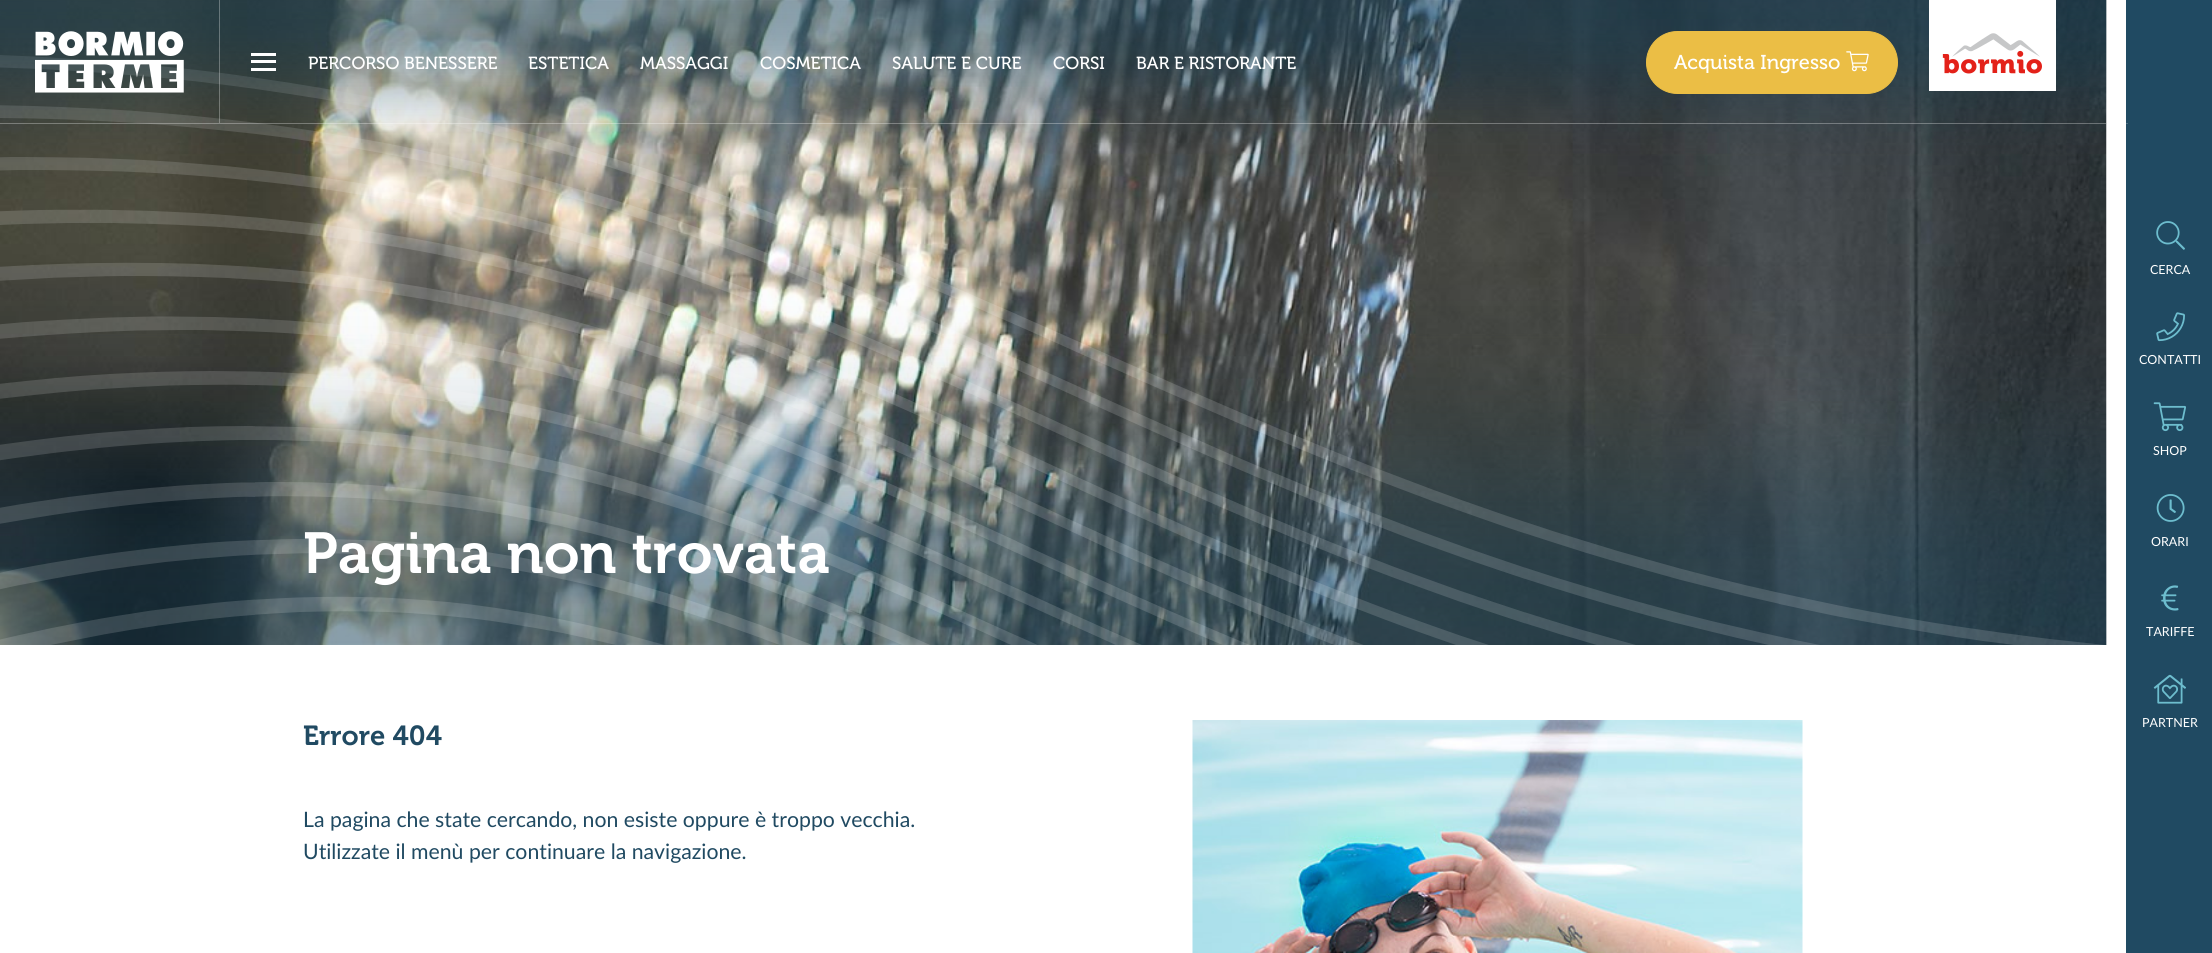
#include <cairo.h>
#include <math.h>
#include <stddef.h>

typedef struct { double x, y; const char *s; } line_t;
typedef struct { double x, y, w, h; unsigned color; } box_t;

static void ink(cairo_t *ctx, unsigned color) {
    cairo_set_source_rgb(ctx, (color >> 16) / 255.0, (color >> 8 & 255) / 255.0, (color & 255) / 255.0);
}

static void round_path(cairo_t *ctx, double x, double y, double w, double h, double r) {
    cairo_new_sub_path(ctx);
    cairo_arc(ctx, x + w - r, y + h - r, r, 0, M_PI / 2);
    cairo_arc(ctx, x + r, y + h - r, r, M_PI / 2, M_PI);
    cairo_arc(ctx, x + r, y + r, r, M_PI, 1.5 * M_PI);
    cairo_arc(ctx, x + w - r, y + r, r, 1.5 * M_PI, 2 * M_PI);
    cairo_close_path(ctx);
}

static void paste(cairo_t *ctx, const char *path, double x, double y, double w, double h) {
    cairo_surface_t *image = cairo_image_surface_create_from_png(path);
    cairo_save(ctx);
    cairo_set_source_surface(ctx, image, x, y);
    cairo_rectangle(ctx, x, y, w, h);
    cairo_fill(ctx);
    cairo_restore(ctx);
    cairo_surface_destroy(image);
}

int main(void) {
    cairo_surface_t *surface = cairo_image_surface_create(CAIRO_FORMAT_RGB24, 2212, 953);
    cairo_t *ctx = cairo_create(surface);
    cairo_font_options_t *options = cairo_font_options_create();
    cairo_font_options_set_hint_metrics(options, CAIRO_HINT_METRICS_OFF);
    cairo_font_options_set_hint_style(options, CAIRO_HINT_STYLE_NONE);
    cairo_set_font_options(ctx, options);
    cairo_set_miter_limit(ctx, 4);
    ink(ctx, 0xFFFFFF);
    cairo_paint(ctx);
    paste(ctx, "media/4.png", 0, 0, 2107, 645);
    cairo_set_source_rgba(ctx, 1, 1, 1, 0.3);
    cairo_rectangle(ctx, 0, 123, 2106, 1);
    cairo_fill(ctx);
    cairo_rectangle(ctx, 219, 0, 1, 123);
    cairo_fill(ctx);
    paste(ctx, "media/1.png", 35, 31, 149, 62);
    {
        static const box_t items[] = {
            {251, 68, 25, 3, 0xFFFFFF},
            {251, 53, 25, 3, 0xFFFFFF},
            {251, 60, 25, 3, 0xFFFFFF},
        };
        for (size_t i = 0; i < sizeof items / sizeof *items; i++) {
            ink(ctx, items[i].color);
            cairo_rectangle(ctx, items[i].x, items[i].y, items[i].w, items[i].h);
            cairo_fill(ctx);
        }
    }
    cairo_select_font_face(ctx, "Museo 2", CAIRO_FONT_SLANT_NORMAL, CAIRO_FONT_WEIGHT_NORMAL);
    cairo_set_font_size(ctx, 17.5);
    {
        static const line_t items[] = {
            {308, 69, "PERCORSO BENESSERE"},
            {528, 69, "ESTETICA"},
            {640, 69, "MASSAGGI"},
            {760, 69, "COSMETICA"},
            {892, 69, "SALUTE E CURE"},
            {1053, 69, "CORSI"},
            {1136, 69, "BAR E RISTORANTE"},
        };
        for (size_t i = 0; i < sizeof items / sizeof *items; i++) {
            cairo_move_to(ctx, items[i].x, items[i].y);
            cairo_show_text(ctx, items[i].s);
        }
    }
    ink(ctx, 0xEBBE45);
    round_path(ctx, 1646.5, 31.5, 251, 62, 31);
    cairo_fill_preserve(ctx);
    cairo_set_line_width(ctx, 1);
    cairo_stroke(ctx);
    cairo_set_font_size(ctx, 20);
    ink(ctx, 0xFFFFFF);
    cairo_move_to(ctx, 1674, 69);
    cairo_show_text(ctx, "Acquista Ingresso");
    paste(ctx, "media/2.png", 1846, 51, 23, 21);
    paste(ctx, "media/3.png", 1929, 0, 127, 91);
    cairo_select_font_face(ctx, "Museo", CAIRO_FONT_SLANT_NORMAL, CAIRO_FONT_WEIGHT_NORMAL);
    cairo_set_font_size(ctx, 57.5);
    cairo_move_to(ctx, 303, 573);
    cairo_show_text(ctx, "Pagina non trovata");
    cairo_set_font_size(ctx, 27.5);
    ink(ctx, 0x204A62);
    cairo_move_to(ctx, 303, 745);
    cairo_show_text(ctx, "Errore 404");
    cairo_select_font_face(ctx, "Lato", CAIRO_FONT_SLANT_NORMAL, CAIRO_FONT_WEIGHT_NORMAL);
    cairo_set_font_size(ctx, 21.25);
    cairo_move_to(ctx, 303, 827);
    cairo_show_text(ctx, "La pagina che state cercando, non esiste oppure è troppo vecchia.");
    cairo_move_to(ctx, 303, 859);
    cairo_show_text(ctx, "Utilizzate il menù per continuare la navigazione.");
    paste(ctx, "media/5.png", 1192, 720, 611, 233);
    cairo_rectangle(ctx, 2126, 0, 86, 953);
    cairo_fill(ctx);
    ink(ctx, 0x4D6E81);
    cairo_rectangle(ctx, 2126, 123, 2, 1);
    cairo_fill(ctx);
    paste(ctx, "media/6.png", 2156, 221, 29, 29);
    cairo_set_font_size(ctx, 12.5);
    ink(ctx, 0xFFFFFF);
    cairo_move_to(ctx, 2150, 274);
    cairo_show_text(ctx, "CERCA");
    paste(ctx, "media/7.png", 2156, 312, 29, 30);
    cairo_move_to(ctx, 2139, 364);
    cairo_show_text(ctx, "CONTATTI");
    paste(ctx, "media/8.png", 2153, 402, 33, 30);
    cairo_move_to(ctx, 2153, 455);
    cairo_show_text(ctx, "SHOP");
    paste(ctx, "media/9.png", 2156, 494, 29, 28);
    cairo_move_to(ctx, 2151, 546);
    cairo_show_text(ctx, "ORARI");
    paste(ctx, "media/10.png", 2161, 585, 18, 26);
    cairo_move_to(ctx, 2146, 636);
    cairo_show_text(ctx, "TARIFFE");
    paste(ctx, "media/11.png", 2153, 674, 33, 30);
    cairo_move_to(ctx, 2142, 727);
    cairo_show_text(ctx, "PARTNER");
    cairo_surface_write_to_png(surface, "image.png");
    cairo_font_options_destroy(options);
    cairo_destroy(ctx);
    cairo_surface_destroy(surface);
    return 0;
}
